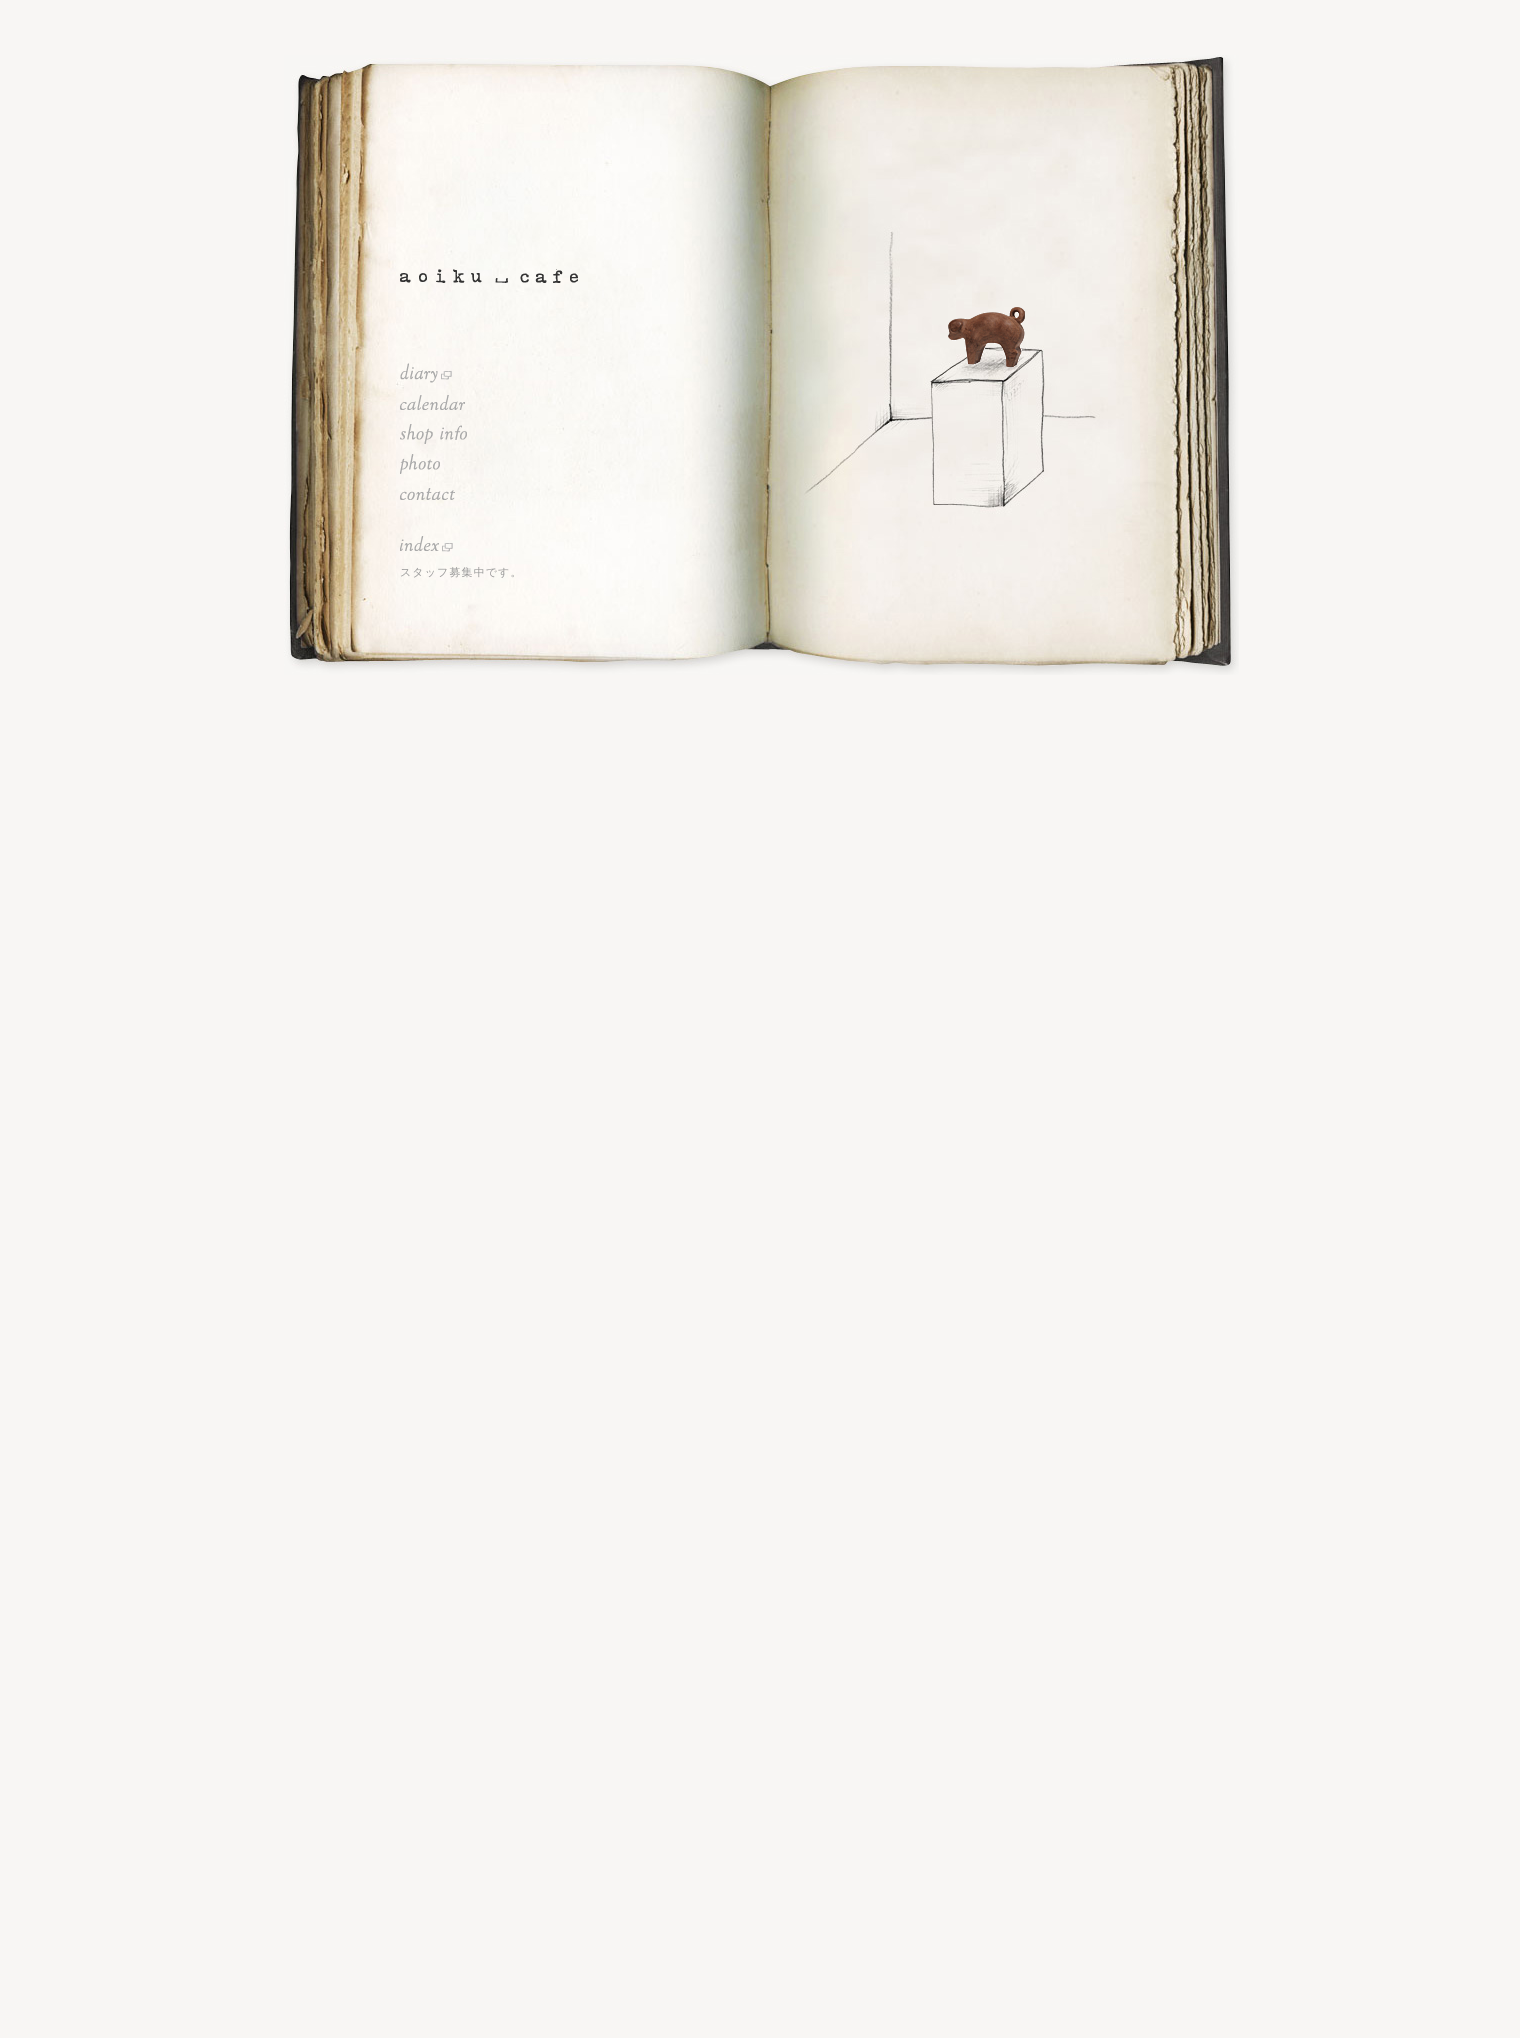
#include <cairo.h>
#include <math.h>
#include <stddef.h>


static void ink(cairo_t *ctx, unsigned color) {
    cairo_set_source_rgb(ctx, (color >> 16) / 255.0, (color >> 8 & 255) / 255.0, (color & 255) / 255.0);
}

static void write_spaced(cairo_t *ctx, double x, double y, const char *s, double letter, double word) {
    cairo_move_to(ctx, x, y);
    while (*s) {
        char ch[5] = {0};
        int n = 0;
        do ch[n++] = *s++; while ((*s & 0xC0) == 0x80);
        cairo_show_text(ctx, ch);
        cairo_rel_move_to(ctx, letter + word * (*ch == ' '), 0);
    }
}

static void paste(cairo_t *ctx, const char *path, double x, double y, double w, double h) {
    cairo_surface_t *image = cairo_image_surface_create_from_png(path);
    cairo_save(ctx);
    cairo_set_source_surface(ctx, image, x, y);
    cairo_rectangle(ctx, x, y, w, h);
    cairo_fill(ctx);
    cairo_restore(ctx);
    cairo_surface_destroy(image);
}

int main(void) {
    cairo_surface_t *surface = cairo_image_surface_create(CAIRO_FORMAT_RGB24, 1520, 2038);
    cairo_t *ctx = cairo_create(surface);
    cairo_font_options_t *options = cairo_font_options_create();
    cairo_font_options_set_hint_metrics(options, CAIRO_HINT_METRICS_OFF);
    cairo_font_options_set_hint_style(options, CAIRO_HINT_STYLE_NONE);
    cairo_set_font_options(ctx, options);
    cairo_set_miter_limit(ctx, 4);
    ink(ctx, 0xF8F6F4);
    cairo_paint(ctx);
    paste(ctx, "media/1.png", 284, 55, 955, 620);
    paste(ctx, "media/2.png", 948, 307, 77, 60);
    paste(ctx, "media/3.png", 400, 269, 178, 14);
    paste(ctx, "media/4.png", 400, 363, 52, 20);
    paste(ctx, "media/5.png", 400, 395, 65, 15);
    paste(ctx, "media/6.png", 400, 424, 67, 20);
    paste(ctx, "media/7.png", 400, 454, 40, 20);
    paste(ctx, "media/8.png", 400, 488, 55, 12);
    paste(ctx, "media/9.png", 400, 536, 53, 16);
    cairo_select_font_face(ctx, "WenQuanYi Zen Hei Medium", CAIRO_FONT_SLANT_NORMAL, CAIRO_FONT_WEIGHT_NORMAL);
    cairo_set_font_size(ctx, 11);
    ink(ctx, 0x999999);
    write_spaced(ctx, 400, 576, "スタッフ募集中です。", 1.1, 0);
    cairo_surface_write_to_png(surface, "image.png");
    cairo_font_options_destroy(options);
    cairo_destroy(ctx);
    cairo_surface_destroy(surface);
    return 0;
}
